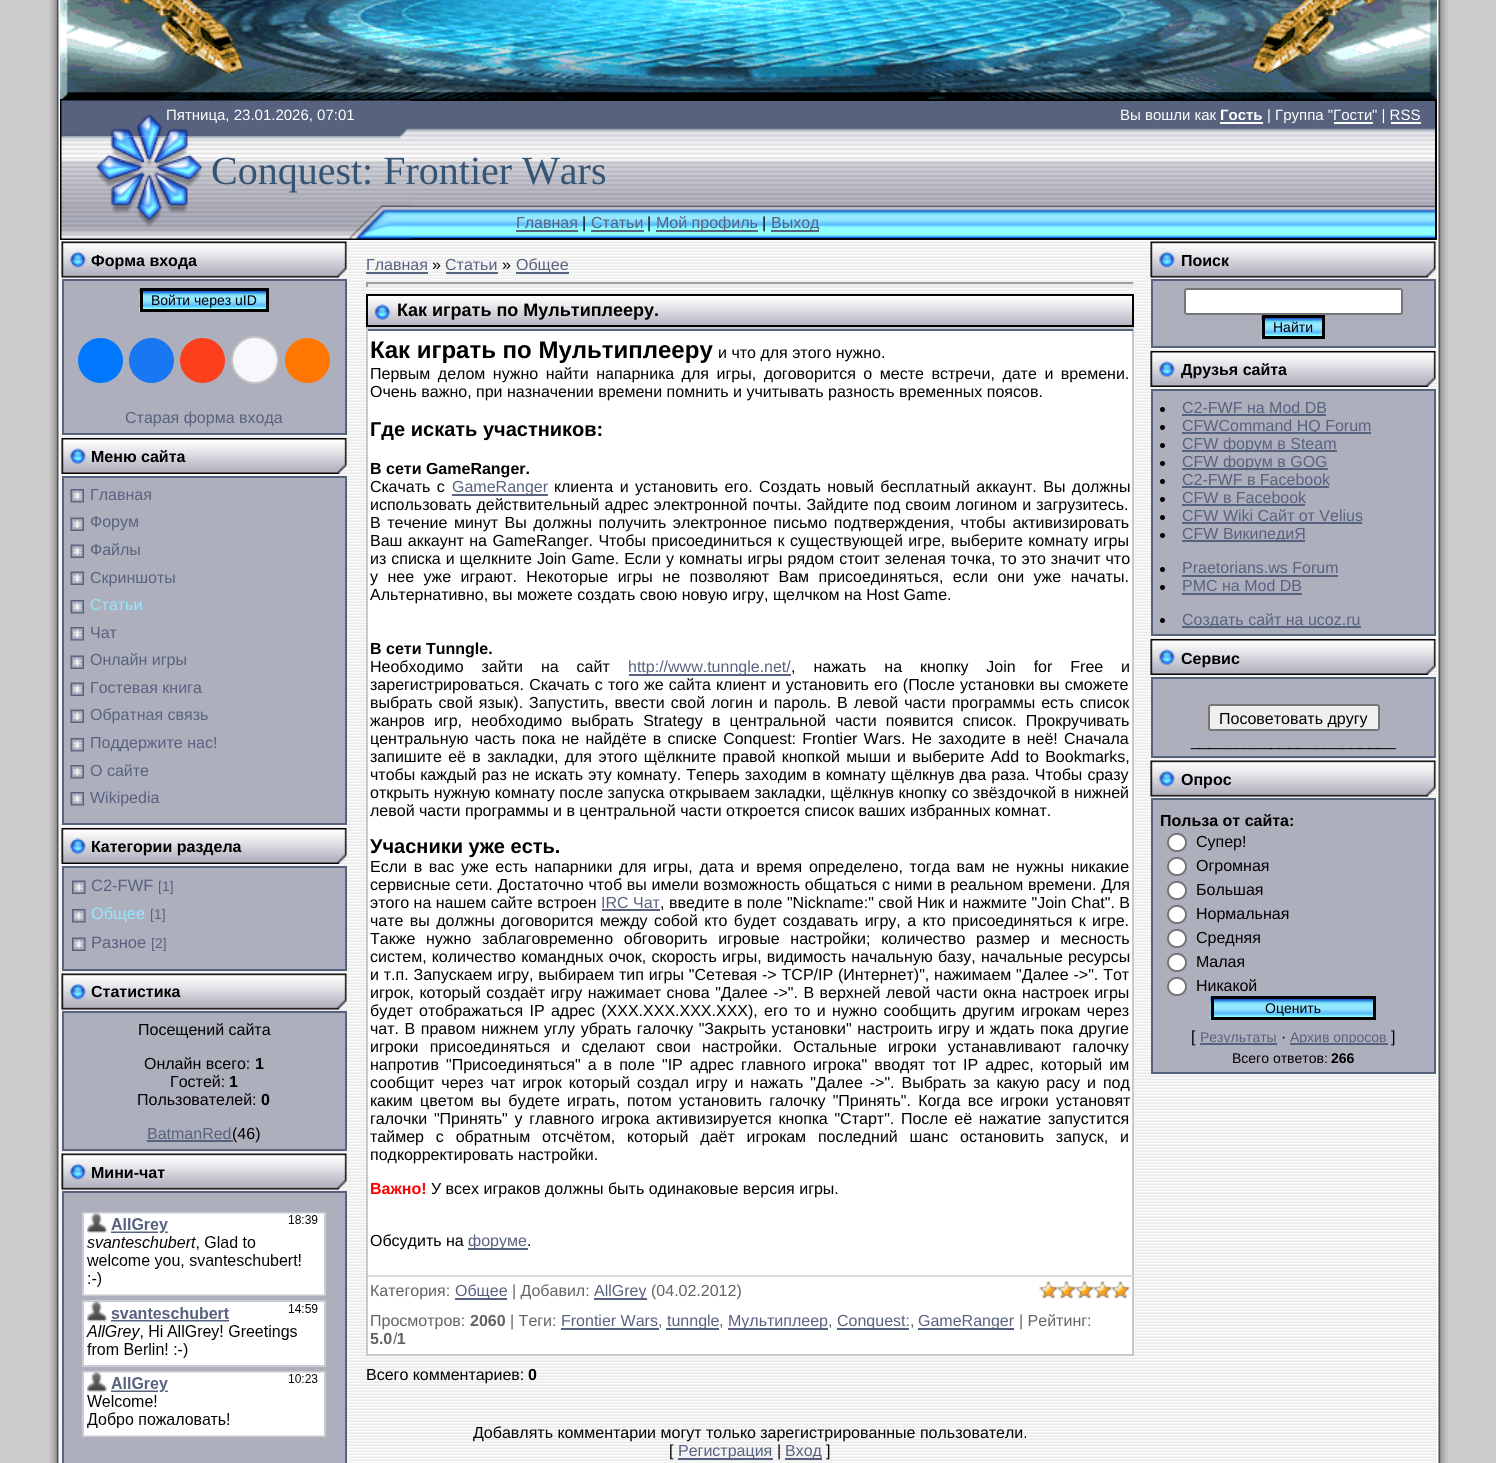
#include <cairo.h>
#include <math.h>
#include <stddef.h>

typedef struct { double x, y, w, h; unsigned color; } box_t;

static void ink(cairo_t *ctx, unsigned color) {
    cairo_set_source_rgb(ctx, (color >> 16) / 255.0, (color >> 8 & 255) / 255.0, (color & 255) / 255.0);
}

static void write_spaced(cairo_t *ctx, double x, double y, const char *s, double letter, double word) {
    cairo_move_to(ctx, x, y);
    while (*s) {
        char ch[5] = {0};
        int n = 0;
        do ch[n++] = *s++; while ((*s & 0xC0) == 0x80);
        cairo_show_text(ctx, ch);
        cairo_rel_move_to(ctx, letter + word * (*ch == ' '), 0);
    }
}

static void round_path(cairo_t *ctx, double x, double y, double w, double h, double r) {
    cairo_new_sub_path(ctx);
    cairo_arc(ctx, x + w - r, y + h - r, r, 0, M_PI / 2);
    cairo_arc(ctx, x + r, y + h - r, r, M_PI / 2, M_PI);
    cairo_arc(ctx, x + r, y + r, r, M_PI, 1.5 * M_PI);
    cairo_arc(ctx, x + w - r, y + r, r, 1.5 * M_PI, 2 * M_PI);
    cairo_close_path(ctx);
}

static void paste(cairo_t *ctx, const char *path, double x, double y, double w, double h) {
    cairo_surface_t *image = cairo_image_surface_create_from_png(path);
    cairo_save(ctx);
    cairo_set_source_surface(ctx, image, x, y);
    cairo_rectangle(ctx, x, y, w, h);
    cairo_fill(ctx);
    cairo_restore(ctx);
    cairo_surface_destroy(image);
}

int main(void) {
    cairo_surface_t *surface = cairo_image_surface_create(CAIRO_FORMAT_RGB24, 1496, 1463);
    cairo_t *ctx = cairo_create(surface);
    cairo_font_options_t *options = cairo_font_options_create();
    cairo_font_options_set_hint_metrics(options, CAIRO_HINT_METRICS_OFF);
    cairo_font_options_set_hint_style(options, CAIRO_HINT_STYLE_NONE);
    cairo_set_font_options(ctx, options);
    cairo_set_miter_limit(ctx, 4);
    ink(ctx, 0xFFFFFF);
    cairo_paint(ctx);
    ink(ctx, 0xCCCCCC);
    cairo_rectangle(ctx, 0, 0, 49, 1463);
    cairo_fill(ctx);
    paste(ctx, "media/1.png", 49, 0, 11, 1463);
    paste(ctx, "media/2.png", 60, 0, 1377, 99);
    paste(ctx, "media/3.png", 62, 101, 1373, 137);
    cairo_rectangle(ctx, 61, 100, 1375, 139);
    ink(ctx, 0x000000);
    cairo_stroke(ctx);
    paste(ctx, "media/4.png", 61, 100, 350, 37);
    cairo_select_font_face(ctx, "Liberation Sans", CAIRO_FONT_SLANT_NORMAL, CAIRO_FONT_WEIGHT_NORMAL);
    cairo_set_font_size(ctx, 15);
    ink(ctx, 0xFFFFFF);
    cairo_move_to(ctx, 166, 120);
    cairo_show_text(ctx, "Пятница, 23.01.2026, 07:01");
    cairo_move_to(ctx, 1120, 120);
    cairo_show_text(ctx, "Вы вошли как");
    cairo_select_font_face(ctx, "Liberation Sans", CAIRO_FONT_SLANT_NORMAL, CAIRO_FONT_WEIGHT_BOLD);
    cairo_move_to(ctx, 1220, 120);
    cairo_show_text(ctx, "Гость");
    cairo_rectangle(ctx, 1220, 122, 43, 2);
    cairo_fill(ctx);
    cairo_select_font_face(ctx, "Liberation Sans", CAIRO_FONT_SLANT_NORMAL, CAIRO_FONT_WEIGHT_NORMAL);
    cairo_move_to(ctx, 1267, 120);
    cairo_show_text(ctx, "| Группа \"Гости");
    cairo_rectangle(ctx, 1334, 122, 39, 2);
    cairo_fill(ctx);
    cairo_move_to(ctx, 1372, 120);
    cairo_show_text(ctx, "\" | RSS");
    cairo_rectangle(ctx, 1391, 122, 30, 2);
    cairo_fill(ctx);
    paste(ctx, "media/5.png", 61, 136, 350, 70);
    cairo_select_font_face(ctx, "Liberation Serif", CAIRO_FONT_SLANT_NORMAL, CAIRO_FONT_WEIGHT_NORMAL);
    cairo_set_font_size(ctx, 40);
    ink(ctx, 0x355473);
    cairo_move_to(ctx, 211, 184);
    cairo_show_text(ctx, "Conquest: Frontier Wars");
    paste(ctx, "media/6.png", 61, 205, 350, 34);
    cairo_select_font_face(ctx, "Liberation Sans", CAIRO_FONT_SLANT_NORMAL, CAIRO_FONT_WEIGHT_NORMAL);
    cairo_set_font_size(ctx, 16);
    ink(ctx, 0x57627F);
    cairo_move_to(ctx, 516, 228);
    cairo_show_text(ctx, "Главная");
    cairo_rectangle(ctx, 516, 230, 62, 2);
    cairo_fill(ctx);
    ink(ctx, 0x000000);
    cairo_move_to(ctx, 582, 228);
    cairo_show_text(ctx, "|");
    ink(ctx, 0x57627F);
    cairo_move_to(ctx, 591, 228);
    cairo_show_text(ctx, "Статьи");
    cairo_rectangle(ctx, 591, 230, 53, 2);
    cairo_fill(ctx);
    ink(ctx, 0x000000);
    cairo_move_to(ctx, 647, 228);
    cairo_show_text(ctx, "|");
    ink(ctx, 0x57627F);
    cairo_rectangle(ctx, 656, 230, 102, 2);
    cairo_fill(ctx);
    cairo_move_to(ctx, 656, 228);
    cairo_show_text(ctx, "Мой профиль");
    ink(ctx, 0x000000);
    cairo_move_to(ctx, 762, 228);
    cairo_show_text(ctx, "|");
    ink(ctx, 0x57627F);
    cairo_rectangle(ctx, 771, 230, 48, 2);
    cairo_fill(ctx);
    cairo_move_to(ctx, 771, 228);
    cairo_show_text(ctx, "Выход");
    paste(ctx, "media/7.png", 60, 241, 1377, 1222);
    paste(ctx, "media/8.png", 61, 241, 286, 37);
    cairo_select_font_face(ctx, "Liberation Sans", CAIRO_FONT_SLANT_NORMAL, CAIRO_FONT_WEIGHT_BOLD);
    ink(ctx, 0x000000);
    cairo_move_to(ctx, 91, 266);
    cairo_show_text(ctx, "Форма входа");
    ink(ctx, 0xAEAFBC);
    cairo_rectangle(ctx, 63, 280, 283, 154);
    cairo_fill_preserve(ctx);
    ink(ctx, 0x57627F);
    cairo_stroke(ctx);
    paste(ctx, "media/9.png", 139, 288, 127, 24);
    cairo_rectangle(ctx, 141.5, 289.5, 126, 21);
    ink(ctx, 0x000000);
    cairo_set_line_width(ctx, 3);
    cairo_stroke(ctx);
    cairo_select_font_face(ctx, "Liberation Sans", CAIRO_FONT_SLANT_NORMAL, CAIRO_FONT_WEIGHT_NORMAL);
    cairo_set_font_size(ctx, 14);
    cairo_move_to(ctx, 151, 305);
    cairo_show_text(ctx, "Войти через uID");
    ink(ctx, 0x0077FF);
    cairo_new_path(ctx);
    cairo_arc(ctx, 100.5, 360.5, 22.5, 0, 2 * M_PI);
    cairo_fill(ctx);
    ink(ctx, 0x1877F2);
    cairo_arc(ctx, 151.5, 360.5, 22.5, 0, 2 * M_PI);
    cairo_fill(ctx);
    ink(ctx, 0xFC3F1D);
    cairo_arc(ctx, 202.5, 360.5, 22.5, 0, 2 * M_PI);
    cairo_fill(ctx);
    ink(ctx, 0xF8F8FC);
    cairo_arc(ctx, 255, 360, 23, 0, 2 * M_PI);
    cairo_fill_preserve(ctx);
    ink(ctx, 0xC4C4C4);
    cairo_set_line_width(ctx, 2);
    cairo_stroke(ctx);
    ink(ctx, 0xFF7700);
    cairo_arc(ctx, 307.5, 360.5, 22.5, 0, 2 * M_PI);
    cairo_fill(ctx);
    cairo_set_font_size(ctx, 16);
    ink(ctx, 0x57627F);
    cairo_move_to(ctx, 125, 423);
    cairo_show_text(ctx, "Старая форма входа");
    paste(ctx, "media/10.png", 61, 438, 286, 36);
    cairo_select_font_face(ctx, "Liberation Sans", CAIRO_FONT_SLANT_NORMAL, CAIRO_FONT_WEIGHT_BOLD);
    ink(ctx, 0x000000);
    cairo_move_to(ctx, 91, 462);
    cairo_show_text(ctx, "Меню сайта");
    ink(ctx, 0xAEAFBC);
    cairo_rectangle(ctx, 63, 477, 283, 347);
    cairo_fill_preserve(ctx);
    ink(ctx, 0x57627F);
    cairo_stroke(ctx);
    paste(ctx, "media/11.png", 70, 489, 14, 14);
    cairo_select_font_face(ctx, "Liberation Sans", CAIRO_FONT_SLANT_NORMAL, CAIRO_FONT_WEIGHT_NORMAL);
    cairo_move_to(ctx, 90, 500);
    cairo_show_text(ctx, "Главная");
    paste(ctx, "media/12.png", 70, 517, 14, 14);
    cairo_move_to(ctx, 90, 527);
    cairo_show_text(ctx, "Форум");
    paste(ctx, "media/12.png", 70, 544, 14, 14);
    cairo_move_to(ctx, 90, 555);
    cairo_show_text(ctx, "Файлы");
    paste(ctx, "media/12.png", 70, 571, 14, 14);
    cairo_move_to(ctx, 90, 583);
    cairo_show_text(ctx, "Скриншоты");
    paste(ctx, "media/11.png", 70, 600, 14, 14);
    ink(ctx, 0x94E7FF);
    cairo_move_to(ctx, 90, 610);
    cairo_show_text(ctx, "Статьи");
    paste(ctx, "media/11.png", 70, 627, 14, 14);
    ink(ctx, 0x57627F);
    cairo_move_to(ctx, 90, 638);
    cairo_show_text(ctx, "Чат");
    paste(ctx, "media/12.png", 70, 655, 14, 14);
    cairo_move_to(ctx, 90, 665);
    cairo_show_text(ctx, "Онлайн игры");
    paste(ctx, "media/12.png", 70, 682, 14, 14);
    cairo_move_to(ctx, 90, 693);
    cairo_show_text(ctx, "Гостевая книга");
    paste(ctx, "media/12.png", 70, 709, 14, 14);
    cairo_move_to(ctx, 90, 720);
    cairo_show_text(ctx, "Обратная связь");
    paste(ctx, "media/11.png", 70, 738, 14, 14);
    cairo_move_to(ctx, 90, 748);
    cairo_show_text(ctx, "Поддержите нас!");
    paste(ctx, "media/11.png", 70, 765, 14, 14);
    cairo_move_to(ctx, 90, 776);
    cairo_show_text(ctx, "О сайте");
    paste(ctx, "media/11.png", 70, 792, 14, 14);
    cairo_move_to(ctx, 90, 803);
    cairo_show_text(ctx, "Wikipedia");
    paste(ctx, "media/10.png", 61, 828, 286, 36);
    cairo_select_font_face(ctx, "Liberation Sans", CAIRO_FONT_SLANT_NORMAL, CAIRO_FONT_WEIGHT_BOLD);
    ink(ctx, 0x000000);
    cairo_move_to(ctx, 91, 852);
    cairo_show_text(ctx, "Категории раздела");
    ink(ctx, 0xAEAFBC);
    cairo_rectangle(ctx, 63, 867, 283, 103);
    cairo_fill_preserve(ctx);
    ink(ctx, 0x57627F);
    cairo_stroke(ctx);
    paste(ctx, "media/13.png", 72, 880, 14, 14);
    cairo_select_font_face(ctx, "Liberation Sans", CAIRO_FONT_SLANT_NORMAL, CAIRO_FONT_WEIGHT_NORMAL);
    cairo_set_font_size(ctx, 16.5);
    cairo_move_to(ctx, 91, 891);
    cairo_show_text(ctx, "C2-FWF");
    cairo_set_font_size(ctx, 14);
    cairo_move_to(ctx, 158, 891);
    cairo_show_text(ctx, "[1]");
    paste(ctx, "media/14.png", 72, 909, 14, 14);
    cairo_set_font_size(ctx, 16.5);
    ink(ctx, 0x94E7FF);
    cairo_move_to(ctx, 91, 919);
    cairo_show_text(ctx, "Общее");
    cairo_set_font_size(ctx, 14);
    ink(ctx, 0x57627F);
    cairo_move_to(ctx, 150, 919);
    cairo_show_text(ctx, "[1]");
    paste(ctx, "media/13.png", 72, 937, 14, 14);
    cairo_set_font_size(ctx, 16.5);
    cairo_move_to(ctx, 91, 948);
    cairo_show_text(ctx, "Разное");
    cairo_set_font_size(ctx, 14);
    cairo_move_to(ctx, 151, 948);
    cairo_show_text(ctx, "[2]");
    paste(ctx, "media/8.png", 61, 973, 286, 37);
    cairo_select_font_face(ctx, "Liberation Sans", CAIRO_FONT_SLANT_NORMAL, CAIRO_FONT_WEIGHT_BOLD);
    cairo_set_font_size(ctx, 16);
    ink(ctx, 0x000000);
    cairo_move_to(ctx, 91, 997);
    cairo_show_text(ctx, "Статистика");
    ink(ctx, 0xAEAFBC);
    cairo_rectangle(ctx, 63, 1012, 283, 138);
    cairo_fill_preserve(ctx);
    ink(ctx, 0x57627F);
    cairo_stroke(ctx);
    cairo_select_font_face(ctx, "Liberation Sans", CAIRO_FONT_SLANT_NORMAL, CAIRO_FONT_WEIGHT_NORMAL);
    ink(ctx, 0x000000);
    cairo_move_to(ctx, 138, 1035);
    cairo_show_text(ctx, "Посещений сайта");
    cairo_move_to(ctx, 144, 1069);
    cairo_show_text(ctx, "Онлайн всего:");
    cairo_select_font_face(ctx, "Liberation Sans", CAIRO_FONT_SLANT_NORMAL, CAIRO_FONT_WEIGHT_BOLD);
    cairo_move_to(ctx, 255, 1069);
    cairo_show_text(ctx, "1");
    cairo_select_font_face(ctx, "Liberation Sans", CAIRO_FONT_SLANT_NORMAL, CAIRO_FONT_WEIGHT_NORMAL);
    cairo_move_to(ctx, 170, 1087);
    cairo_show_text(ctx, "Гостей:");
    cairo_select_font_face(ctx, "Liberation Sans", CAIRO_FONT_SLANT_NORMAL, CAIRO_FONT_WEIGHT_BOLD);
    cairo_move_to(ctx, 229, 1087);
    cairo_show_text(ctx, "1");
    cairo_select_font_face(ctx, "Liberation Sans", CAIRO_FONT_SLANT_NORMAL, CAIRO_FONT_WEIGHT_NORMAL);
    cairo_move_to(ctx, 137, 1105);
    cairo_show_text(ctx, "Пользователей:");
    cairo_select_font_face(ctx, "Liberation Sans", CAIRO_FONT_SLANT_NORMAL, CAIRO_FONT_WEIGHT_BOLD);
    cairo_move_to(ctx, 261, 1105);
    cairo_show_text(ctx, "0");
    cairo_select_font_face(ctx, "Liberation Sans", CAIRO_FONT_SLANT_NORMAL, CAIRO_FONT_WEIGHT_NORMAL);
    ink(ctx, 0x57627F);
    cairo_move_to(ctx, 147, 1139);
    cairo_show_text(ctx, "BatmanRed");
    cairo_rectangle(ctx, 147, 1140, 86, 2);
    cairo_fill(ctx);
    ink(ctx, 0x000000);
    cairo_move_to(ctx, 232, 1139);
    cairo_show_text(ctx, "(46)");
    paste(ctx, "media/8.png", 61, 1153, 286, 37);
    cairo_select_font_face(ctx, "Liberation Sans", CAIRO_FONT_SLANT_NORMAL, CAIRO_FONT_WEIGHT_BOLD);
    cairo_move_to(ctx, 91, 1178);
    cairo_show_text(ctx, "Мини-чат");
    ink(ctx, 0xAEAFBC);
    cairo_rectangle(ctx, 63, 1192, 283, 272);
    cairo_fill_preserve(ctx);
    ink(ctx, 0x57627F);
    cairo_stroke(ctx);
    paste(ctx, "media/15.png", 82, 1212, 244, 225);
    cairo_select_font_face(ctx, "Liberation Sans", CAIRO_FONT_SLANT_NORMAL, CAIRO_FONT_WEIGHT_NORMAL);
    cairo_move_to(ctx, 366, 270);
    cairo_show_text(ctx, "Главная");
    cairo_rectangle(ctx, 366, 272, 62, 2);
    cairo_fill(ctx);
    ink(ctx, 0x000000);
    cairo_move_to(ctx, 432, 270);
    cairo_show_text(ctx, "»");
    ink(ctx, 0x57627F);
    cairo_move_to(ctx, 445, 270);
    cairo_show_text(ctx, "Статьи");
    cairo_rectangle(ctx, 446, 272, 52, 2);
    cairo_fill(ctx);
    ink(ctx, 0x000000);
    cairo_move_to(ctx, 502, 270);
    cairo_show_text(ctx, "»");
    ink(ctx, 0x57627F);
    cairo_rectangle(ctx, 516, 272, 53, 2);
    cairo_fill(ctx);
    cairo_move_to(ctx, 516, 270);
    cairo_show_text(ctx, "Общее");
    {
        static const box_t items[] = {
            {366, 282, 768, 2, 0x9F9F9F},
            {1133, 282, 2, 5, 0xEEEEEE},
            {366, 285, 768, 2, 0xEEEEEE},
            {366, 282, 2, 5, 0x9F9F9F},
        };
        for (size_t i = 0; i < sizeof items / sizeof *items; i++) {
            ink(ctx, items[i].color);
            cairo_rectangle(ctx, items[i].x, items[i].y, items[i].w, items[i].h);
            cairo_fill(ctx);
        }
    }
    paste(ctx, "media/16.png", 368, 296, 764, 29);
    cairo_rectangle(ctx, 367, 295, 766, 31);
    ink(ctx, 0x060000);
    cairo_stroke(ctx);
    cairo_select_font_face(ctx, "Liberation Sans", CAIRO_FONT_SLANT_NORMAL, CAIRO_FONT_WEIGHT_BOLD);
    cairo_set_font_size(ctx, 18);
    ink(ctx, 0x000000);
    cairo_move_to(ctx, 397, 316);
    cairo_show_text(ctx, "Как играть по Мультиплееру.");
    ink(ctx, 0xFFFFFF);
    cairo_rectangle(ctx, 368, 331, 764, 1023);
    cairo_fill(ctx);
    cairo_rectangle(ctx, 367, 328, 766, 1027);
    ink(ctx, 0xC7C9CE);
    cairo_stroke(ctx);
    ink(ctx, 0x57627F);
    cairo_rectangle(ctx, 368, 329, 765, 2);
    cairo_fill(ctx);
    cairo_set_font_size(ctx, 24);
    ink(ctx, 0x000000);
    cairo_move_to(ctx, 370, 358);
    cairo_show_text(ctx, "Как играть по Мультиплееру");
    cairo_select_font_face(ctx, "Liberation Sans", CAIRO_FONT_SLANT_NORMAL, CAIRO_FONT_WEIGHT_NORMAL);
    cairo_set_font_size(ctx, 16);
    cairo_move_to(ctx, 718, 358);
    cairo_show_text(ctx, "и что для этого нужно.");
    write_spaced(ctx, 370, 379, "Первым делом нужно найти напарника для игры, договорится о месте встречи, дате и времени.", 0, 3.1);
    cairo_move_to(ctx, 370, 397);
    cairo_show_text(ctx, "Очень важно, при назначении времени помнить и учитывать разность временных поясов.");
    cairo_select_font_face(ctx, "Liberation Sans", CAIRO_FONT_SLANT_NORMAL, CAIRO_FONT_WEIGHT_BOLD);
    cairo_set_font_size(ctx, 20);
    cairo_move_to(ctx, 370, 436);
    cairo_show_text(ctx, "Где искать участников:");
    cairo_set_font_size(ctx, 16);
    cairo_move_to(ctx, 370, 474);
    cairo_show_text(ctx, "В сети GameRanger.");
    cairo_select_font_face(ctx, "Liberation Sans", CAIRO_FONT_SLANT_NORMAL, CAIRO_FONT_WEIGHT_NORMAL);
    write_spaced(ctx, 370, 492, "Скачать с", 0, 2);
    ink(ctx, 0x57627F);
    cairo_rectangle(ctx, 452, 494, 96, 2);
    cairo_fill(ctx);
    cairo_move_to(ctx, 452, 492);
    cairo_show_text(ctx, "GameRanger");
    ink(ctx, 0x000000);
    write_spaced(ctx, 554, 492, "клиента и установить его. Создать новый бесплатный аккаунт. Вы должны", 0, 2);
    write_spaced(ctx, 370, 510, "использовать действительный адрес электронной почты. Зайдите под своим логином и загрузитесь.", 0, 0.5);
    write_spaced(ctx, 370, 528, "В течение минут Вы должны получить электронное письмо подтверждения, чтобы активизировать", 0, 2.1);
    write_spaced(ctx, 370, 546, "Ваш аккаунт на GameRanger. Чтобы присоединиться к существующей игре, выберите комнату игры", 0, 1);
    write_spaced(ctx, 370, 564, "из списка и щелкните Join Game. Если у комнаты игры рядом стоит зеленая точка, то это значит что", 0, 0.5);
    write_spaced(ctx, 370, 582, "у нее уже играют. Некоторые игры не позволяют Вам присоединяться, если они уже начаты.", 0, 5);
    cairo_move_to(ctx, 370, 600);
    cairo_show_text(ctx, "Альтернативно, вы можете создать свою новую игру, щелчком на Host Game.");
    cairo_select_font_face(ctx, "Liberation Sans", CAIRO_FONT_SLANT_NORMAL, CAIRO_FONT_WEIGHT_BOLD);
    cairo_move_to(ctx, 370, 654);
    cairo_show_text(ctx, "В сети Tunngle.");
    cairo_select_font_face(ctx, "Liberation Sans", CAIRO_FONT_SLANT_NORMAL, CAIRO_FONT_WEIGHT_NORMAL);
    write_spaced(ctx, 370, 672, "Необходимо зайти на сайт", 0, 13.5);
    ink(ctx, 0x57627F);
    cairo_rectangle(ctx, 629, 674, 162, 2);
    cairo_fill(ctx);
    cairo_move_to(ctx, 628, 672);
    cairo_show_text(ctx, "http://www.tunngle.net/");
    ink(ctx, 0x000000);
    write_spaced(ctx, 791, 672, ", нажать на кнопку Join for Free и", 0, 13.5);
    write_spaced(ctx, 370, 690, "зарегистрироваться. Скачать с того же сайта клиент и установить его (После установки вы сможете", 0, 0.75);
    write_spaced(ctx, 370, 708, "выбрать свой язык). Запустить, ввести свой логин и пароль. В левой части программы есть список", 0, 1.5);
    write_spaced(ctx, 370, 726, "жанров игр, необходимо выбрать Strategy в центральной части появится список. Прокручивать", 0, 4.75);
    write_spaced(ctx, 370, 744, "центральную часть пока не найдёте в списке Conquest: Frontier Wars. Не заходите в неё! Сначала", 0, 1.75);
    write_spaced(ctx, 370, 762, "запишите её в закладки, для этого щёлкните правой кнопкой мыши и выберите Add to Bookmarks,", 0, 1.9);
    write_spaced(ctx, 370, 780, "чтобы каждый раз не искать эту комнату. Теперь заходим в комнату щёлкнув два раза. Чтобы сразу", 0, 0.6);
    write_spaced(ctx, 370, 798, "открыть нужную комнату после запуска открываем закладки, щёлкнув кнопку со звёздочкой в нижней", 0, 0.1);
    cairo_move_to(ctx, 370, 816);
    cairo_show_text(ctx, "левой части программы и в центральной части откроется список ваших избранных комнат.");
    cairo_select_font_face(ctx, "Liberation Sans", CAIRO_FONT_SLANT_NORMAL, CAIRO_FONT_WEIGHT_BOLD);
    cairo_set_font_size(ctx, 20);
    cairo_move_to(ctx, 370, 853);
    cairo_show_text(ctx, "Учасники уже есть.");
    cairo_select_font_face(ctx, "Liberation Sans", CAIRO_FONT_SLANT_NORMAL, CAIRO_FONT_WEIGHT_NORMAL);
    cairo_set_font_size(ctx, 16);
    write_spaced(ctx, 370, 872, "Если в вас уже есть напарники для игры, дата и время определено, тогда вам не нужны никакие", 0, 2.25);
    write_spaced(ctx, 370, 890, "сервисные сети. Достаточно чтоб вы имели возможность общаться с ними в реальном времени. Для", 0, 0.25);
    cairo_move_to(ctx, 370, 908);
    cairo_show_text(ctx, "этого на нашем сайте встроен");
    ink(ctx, 0x57627F);
    cairo_move_to(ctx, 601, 908);
    cairo_show_text(ctx, "IRC Чат");
    cairo_rectangle(ctx, 602, 909, 58, 2);
    cairo_fill(ctx);
    ink(ctx, 0x000000);
    cairo_move_to(ctx, 660, 908);
    cairo_show_text(ctx, ", введите в поле \"Nickname:\" свой Ник и нажмите \"Join Chat\". В");
    write_spaced(ctx, 370, 926, "чате вы должны договорится между собой кто будет создавать игру, а кто присоединяться к игре.", 0, 1.9);
    write_spaced(ctx, 370, 944, "Также нужно заблаговременно обговорить игровые настройки; количество размер и месность", 0, 6.25);
    write_spaced(ctx, 370, 962, "систем, количество командных очок, скорость игры, видимость начальную базу, начальные ресурсы", 0, 0.75);
    write_spaced(ctx, 370, 980, "и т.п. Запускаем игру, выбираем тип игры \"Сетевая -> TCP/IP (Интернет)\", нажимаем \"Далее ->\". Тот", 0, 0.4);
    write_spaced(ctx, 370, 998, "игрок, который создаёт игру нажимает снова \"Далее ->\". В верхней левой части окна настроек игры", 0, 1);
    write_spaced(ctx, 370, 1016, "будет отображаться IP адрес (ХХХ.ХХХ.ХХХ.ХХХ), его то и нужно сообщить другим игрокам через", 0, 1.9);
    write_spaced(ctx, 370, 1034, "чат. В правом нижнем углу убрать галочку \"Закрыть установки\" настроить игру и ждать пока другие", 0, 1.1);
    write_spaced(ctx, 370, 1052, "игроки присоединяться и сделают свои настройки. Остальные игроки устанавливают галочку", 0, 6.75);
    write_spaced(ctx, 370, 1070, "напротив \"Присоединяться\" а в поле \"IP адрес главного игрока\" вводят тот IP адрес, который им", 0, 2.6);
    write_spaced(ctx, 370, 1088, "сообщит через чат игрок который создал игру и нажать \"Далее ->\". Выбрать за какую расу и под", 0, 2.5);
    write_spaced(ctx, 370, 1106, "каким цветом вы будете играть, потом установить галочку \"Принять\". Когда все игроки установят", 0, 2.75);
    write_spaced(ctx, 370, 1124, "галочки \"Принять\" у главного игрока активизируется кнопка \"Старт\". После её нажатие запустится", 0, 2.25);
    write_spaced(ctx, 370, 1142, "таймер с обратным отсчётом, который даёт игрокам последний шанс остановить запуск, и", 0, 7.4);
    cairo_move_to(ctx, 370, 1160);
    cairo_show_text(ctx, "подкорректировать настройки.");
    cairo_select_font_face(ctx, "Liberation Sans", CAIRO_FONT_SLANT_NORMAL, CAIRO_FONT_WEIGHT_BOLD);
    ink(ctx, 0xFF0000);
    cairo_move_to(ctx, 370, 1194);
    cairo_show_text(ctx, "Важно!");
    cairo_select_font_face(ctx, "Liberation Sans", CAIRO_FONT_SLANT_NORMAL, CAIRO_FONT_WEIGHT_NORMAL);
    ink(ctx, 0x000000);
    cairo_move_to(ctx, 431, 1194);
    cairo_show_text(ctx, "У всех играков должны быть одинаковые версия игры.");
    cairo_move_to(ctx, 370, 1246);
    cairo_show_text(ctx, "Обсудить на");
    ink(ctx, 0x57627F);
    cairo_rectangle(ctx, 468, 1248, 60, 2);
    cairo_fill(ctx);
    cairo_move_to(ctx, 468, 1246);
    cairo_show_text(ctx, "форуме");
    ink(ctx, 0x000000);
    cairo_move_to(ctx, 527, 1246);
    cairo_show_text(ctx, ".");
    ink(ctx, 0xDDDDDD);
    cairo_rectangle(ctx, 368, 1275, 765, 2);
    cairo_fill(ctx);
    ink(ctx, 0x636363);
    cairo_move_to(ctx, 370, 1296);
    cairo_show_text(ctx, "Категория:");
    ink(ctx, 0x57627F);
    cairo_rectangle(ctx, 455, 1298, 52, 2);
    cairo_fill(ctx);
    cairo_move_to(ctx, 455, 1296);
    cairo_show_text(ctx, "Общее");
    ink(ctx, 0x636363);
    cairo_move_to(ctx, 512, 1296);
    cairo_show_text(ctx, "| Добавил:");
    ink(ctx, 0x57627F);
    cairo_rectangle(ctx, 594, 1298, 53, 2);
    cairo_fill(ctx);
    cairo_move_to(ctx, 594, 1296);
    cairo_show_text(ctx, "AllGrey");
    ink(ctx, 0x636363);
    cairo_move_to(ctx, 651, 1296);
    cairo_show_text(ctx, "(04.02.2012)");
    paste(ctx, "media/17.png", 1039, 1281, 91, 18);
    paste(ctx, "media/18.png", 1039, 1281, 91, 18);
    cairo_move_to(ctx, 370, 1326);
    cairo_show_text(ctx, "Просмотров:");
    cairo_select_font_face(ctx, "Liberation Sans", CAIRO_FONT_SLANT_NORMAL, CAIRO_FONT_WEIGHT_BOLD);
    cairo_move_to(ctx, 470, 1326);
    cairo_show_text(ctx, "2060");
    cairo_select_font_face(ctx, "Liberation Sans", CAIRO_FONT_SLANT_NORMAL, CAIRO_FONT_WEIGHT_NORMAL);
    cairo_move_to(ctx, 510, 1326);
    cairo_show_text(ctx, "| Теги:");
    ink(ctx, 0x57627F);
    cairo_move_to(ctx, 561, 1326);
    cairo_show_text(ctx, "Frontier Wars");
    ink(ctx, 0x636363);
    cairo_move_to(ctx, 658, 1326);
    cairo_show_text(ctx, ",");
    ink(ctx, 0x57627F);
    cairo_rectangle(ctx, 561, 1328, 98, 2);
    cairo_fill(ctx);
    cairo_rectangle(ctx, 666, 1328, 53, 2);
    cairo_fill(ctx);
    cairo_move_to(ctx, 667, 1326);
    cairo_show_text(ctx, "tunngle");
    ink(ctx, 0x636363);
    cairo_move_to(ctx, 719, 1326);
    cairo_show_text(ctx, ",");
    ink(ctx, 0x57627F);
    cairo_rectangle(ctx, 728, 1328, 100, 2);
    cairo_fill(ctx);
    cairo_move_to(ctx, 728, 1326);
    cairo_show_text(ctx, "Мультиплеер");
    ink(ctx, 0x636363);
    cairo_move_to(ctx, 828, 1326);
    cairo_show_text(ctx, ",");
    ink(ctx, 0x57627F);
    cairo_rectangle(ctx, 837, 1328, 72, 2);
    cairo_fill(ctx);
    cairo_move_to(ctx, 837, 1326);
    cairo_show_text(ctx, "Conquest:");
    ink(ctx, 0x636363);
    cairo_move_to(ctx, 910, 1326);
    cairo_show_text(ctx, ",");
    ink(ctx, 0x57627F);
    cairo_rectangle(ctx, 918, 1328, 96, 2);
    cairo_fill(ctx);
    cairo_move_to(ctx, 918, 1326);
    cairo_show_text(ctx, "GameRanger");
    ink(ctx, 0x636363);
    cairo_move_to(ctx, 1019, 1326);
    cairo_show_text(ctx, "| Рейтинг:");
    cairo_select_font_face(ctx, "Liberation Sans", CAIRO_FONT_SLANT_NORMAL, CAIRO_FONT_WEIGHT_BOLD);
    cairo_move_to(ctx, 370, 1344);
    cairo_show_text(ctx, "5.0 1");
    cairo_select_font_face(ctx, "Liberation Sans", CAIRO_FONT_SLANT_NORMAL, CAIRO_FONT_WEIGHT_NORMAL);
    cairo_move_to(ctx, 393, 1344);
    cairo_show_text(ctx, "/");
    ink(ctx, 0x000000);
    cairo_move_to(ctx, 366, 1380);
    cairo_show_text(ctx, "Всего комментариев:");
    cairo_select_font_face(ctx, "Liberation Sans", CAIRO_FONT_SLANT_NORMAL, CAIRO_FONT_WEIGHT_BOLD);
    cairo_move_to(ctx, 528, 1380);
    cairo_show_text(ctx, "0");
    cairo_select_font_face(ctx, "Liberation Sans", CAIRO_FONT_SLANT_NORMAL, CAIRO_FONT_WEIGHT_NORMAL);
    cairo_move_to(ctx, 473, 1438);
    cairo_show_text(ctx, "Добавлять комментарии могут только зарегистрированные пользователи.");
    cairo_move_to(ctx, 669, 1456);
    cairo_show_text(ctx, "[");
    ink(ctx, 0x57627F);
    cairo_rectangle(ctx, 678, 1458, 95, 2);
    cairo_fill(ctx);
    cairo_move_to(ctx, 678, 1456);
    cairo_show_text(ctx, "Регистрация");
    ink(ctx, 0x000000);
    cairo_move_to(ctx, 777, 1456);
    cairo_show_text(ctx, "|");
    ink(ctx, 0x57627F);
    cairo_rectangle(ctx, 785, 1458, 37, 2);
    cairo_fill(ctx);
    cairo_move_to(ctx, 785, 1456);
    cairo_show_text(ctx, "Вход");
    ink(ctx, 0x000000);
    cairo_move_to(ctx, 826, 1456);
    cairo_show_text(ctx, "]");
    paste(ctx, "media/19.png", 1150, 241, 286, 37);
    cairo_select_font_face(ctx, "Liberation Sans", CAIRO_FONT_SLANT_NORMAL, CAIRO_FONT_WEIGHT_BOLD);
    cairo_move_to(ctx, 1181, 266);
    cairo_show_text(ctx, "Поиск");
    ink(ctx, 0xAEAFBC);
    cairo_rectangle(ctx, 1152, 280, 283, 67);
    cairo_fill_preserve(ctx);
    ink(ctx, 0x57627F);
    cairo_stroke(ctx);
    ink(ctx, 0xFFFFFF);
    round_path(ctx, 1185, 289, 217, 25, 2);
    cairo_fill_preserve(ctx);
    ink(ctx, 0x767676);
    cairo_stroke(ctx);
    paste(ctx, "media/20.png", 1261, 315, 61, 24);
    cairo_rectangle(ctx, 1263.5, 316.5, 60, 21);
    ink(ctx, 0x000000);
    cairo_set_line_width(ctx, 3);
    cairo_stroke(ctx);
    cairo_select_font_face(ctx, "Liberation Sans", CAIRO_FONT_SLANT_NORMAL, CAIRO_FONT_WEIGHT_NORMAL);
    cairo_set_font_size(ctx, 14);
    cairo_move_to(ctx, 1273, 332);
    cairo_show_text(ctx, "Найти");
    paste(ctx, "media/21.png", 1150, 351, 286, 36);
    cairo_select_font_face(ctx, "Liberation Sans", CAIRO_FONT_SLANT_NORMAL, CAIRO_FONT_WEIGHT_BOLD);
    cairo_set_font_size(ctx, 16);
    cairo_move_to(ctx, 1181, 375);
    cairo_show_text(ctx, "Друзья сайта");
    ink(ctx, 0xAEAFBC);
    cairo_rectangle(ctx, 1152, 390, 283, 245);
    cairo_fill_preserve(ctx);
    ink(ctx, 0x57627F);
    cairo_set_line_width(ctx, 2);
    cairo_stroke(ctx);
    ink(ctx, 0x000000);
    cairo_arc(ctx, 1162.5, 409.5, 2.5, 0, 2 * M_PI);
    cairo_fill(ctx);
    cairo_select_font_face(ctx, "Liberation Sans", CAIRO_FONT_SLANT_NORMAL, CAIRO_FONT_WEIGHT_NORMAL);
    ink(ctx, 0x57627F);
    cairo_move_to(ctx, 1182, 413);
    cairo_show_text(ctx, "C2-FWF на Mod DB");
    cairo_rectangle(ctx, 1182, 414, 144, 2);
    cairo_fill(ctx);
    ink(ctx, 0x000000);
    cairo_arc(ctx, 1162.5, 427.5, 2.5, 0, 2 * M_PI);
    cairo_fill(ctx);
    ink(ctx, 0x57627F);
    cairo_rectangle(ctx, 1182, 432, 189, 2);
    cairo_fill(ctx);
    cairo_move_to(ctx, 1182, 431);
    cairo_show_text(ctx, "CFWCommand HQ Forum");
    ink(ctx, 0x000000);
    cairo_new_path(ctx);
    cairo_arc(ctx, 1162.5, 445.5, 2.5, 0, 2 * M_PI);
    cairo_fill(ctx);
    ink(ctx, 0x57627F);
    cairo_rectangle(ctx, 1182, 450, 155, 2);
    cairo_fill(ctx);
    cairo_move_to(ctx, 1182, 449);
    cairo_show_text(ctx, "CFW форум в Steam");
    ink(ctx, 0x000000);
    cairo_new_path(ctx);
    cairo_arc(ctx, 1162.5, 463.5, 2.5, 0, 2 * M_PI);
    cairo_fill(ctx);
    ink(ctx, 0x57627F);
    cairo_rectangle(ctx, 1182, 468, 146, 2);
    cairo_fill(ctx);
    cairo_move_to(ctx, 1182, 467);
    cairo_show_text(ctx, "CFW форум в GOG");
    ink(ctx, 0x000000);
    cairo_new_path(ctx);
    cairo_arc(ctx, 1162.5, 481.5, 2.5, 0, 2 * M_PI);
    cairo_fill(ctx);
    ink(ctx, 0x57627F);
    cairo_move_to(ctx, 1182, 485);
    cairo_show_text(ctx, "C2-FWF в Facebook");
    cairo_rectangle(ctx, 1182, 486, 147, 2);
    cairo_fill(ctx);
    ink(ctx, 0x000000);
    cairo_arc(ctx, 1162.5, 499.5, 2.5, 0, 2 * M_PI);
    cairo_fill(ctx);
    ink(ctx, 0x57627F);
    cairo_move_to(ctx, 1182, 503);
    cairo_show_text(ctx, "CFW в Facebook");
    cairo_rectangle(ctx, 1182, 504, 123, 2);
    cairo_fill(ctx);
    ink(ctx, 0x000000);
    cairo_arc(ctx, 1162.5, 517.5, 2.5, 0, 2 * M_PI);
    cairo_fill(ctx);
    ink(ctx, 0x57627F);
    cairo_move_to(ctx, 1182, 521);
    cairo_show_text(ctx, "CFW Wiki Сайт от Velius");
    cairo_rectangle(ctx, 1182, 522, 180, 2);
    cairo_fill(ctx);
    ink(ctx, 0x000000);
    cairo_arc(ctx, 1162.5, 535.5, 2.5, 0, 2 * M_PI);
    cairo_fill(ctx);
    ink(ctx, 0x57627F);
    cairo_rectangle(ctx, 1182, 540, 123, 2);
    cairo_fill(ctx);
    cairo_move_to(ctx, 1182, 539);
    cairo_show_text(ctx, "CFW ВикипедиЯ");
    ink(ctx, 0x000000);
    cairo_new_path(ctx);
    cairo_arc(ctx, 1162.5, 569.5, 2.5, 0, 2 * M_PI);
    cairo_fill(ctx);
    ink(ctx, 0x57627F);
    cairo_move_to(ctx, 1182, 573);
    cairo_show_text(ctx, "Praetorians.ws Forum");
    cairo_rectangle(ctx, 1182, 575, 156, 2);
    cairo_fill(ctx);
    ink(ctx, 0x000000);
    cairo_arc(ctx, 1162.5, 587.5, 2.5, 0, 2 * M_PI);
    cairo_fill(ctx);
    ink(ctx, 0x57627F);
    cairo_move_to(ctx, 1182, 591);
    cairo_show_text(ctx, "PMC на Mod DB");
    cairo_rectangle(ctx, 1182, 593, 120, 2);
    cairo_fill(ctx);
    ink(ctx, 0x000000);
    cairo_arc(ctx, 1162.5, 620.5, 2.5, 0, 2 * M_PI);
    cairo_fill(ctx);
    ink(ctx, 0x57627F);
    cairo_rectangle(ctx, 1182, 626, 179, 2);
    cairo_fill(ctx);
    cairo_move_to(ctx, 1182, 625);
    cairo_show_text(ctx, "Создать сайт на ucoz.ru");
    paste(ctx, "media/21.png", 1150, 639, 286, 36);
    cairo_select_font_face(ctx, "Liberation Sans", CAIRO_FONT_SLANT_NORMAL, CAIRO_FONT_WEIGHT_BOLD);
    ink(ctx, 0x000000);
    cairo_move_to(ctx, 1181, 664);
    cairo_show_text(ctx, "Сервис");
    ink(ctx, 0xAEAFBC);
    cairo_rectangle(ctx, 1152, 678, 283, 79);
    cairo_fill_preserve(ctx);
    ink(ctx, 0x57627F);
    cairo_stroke(ctx);
    ink(ctx, 0xEFEFEF);
    round_path(ctx, 1209, 705, 170, 25, 2);
    cairo_fill_preserve(ctx);
    ink(ctx, 0x767676);
    cairo_stroke(ctx);
    cairo_select_font_face(ctx, "Liberation Sans", CAIRO_FONT_SLANT_NORMAL, CAIRO_FONT_WEIGHT_NORMAL);
    ink(ctx, 0x000000);
    cairo_move_to(ctx, 1219, 724);
    cairo_show_text(ctx, "Посоветовать другу");
    cairo_move_to(ctx, 1191, 746);
    cairo_show_text(ctx, "_______________________");
    paste(ctx, "media/19.png", 1150, 760, 286, 37);
    cairo_select_font_face(ctx, "Liberation Sans", CAIRO_FONT_SLANT_NORMAL, CAIRO_FONT_WEIGHT_BOLD);
    cairo_move_to(ctx, 1181, 785);
    cairo_show_text(ctx, "Опрос");
    ink(ctx, 0xAEAFBC);
    cairo_rectangle(ctx, 1152, 799, 283, 274);
    cairo_fill_preserve(ctx);
    ink(ctx, 0x57627F);
    cairo_stroke(ctx);
    ink(ctx, 0x000000);
    cairo_move_to(ctx, 1160, 826);
    cairo_show_text(ctx, "Польза от сайта:");
    ink(ctx, 0xFFFFFF);
    round_path(ctx, 1168, 834, 18, 17, 8.5);
    cairo_fill_preserve(ctx);
    ink(ctx, 0x767676);
    cairo_stroke(ctx);
    cairo_select_font_face(ctx, "Liberation Sans", CAIRO_FONT_SLANT_NORMAL, CAIRO_FONT_WEIGHT_NORMAL);
    ink(ctx, 0x000000);
    cairo_move_to(ctx, 1196, 847);
    cairo_show_text(ctx, "Супер!");
    ink(ctx, 0xFFFFFF);
    round_path(ctx, 1168, 858, 18, 17, 8.5);
    cairo_fill_preserve(ctx);
    ink(ctx, 0x767676);
    cairo_stroke(ctx);
    ink(ctx, 0x000000);
    cairo_move_to(ctx, 1196, 871);
    cairo_show_text(ctx, "Огромная");
    ink(ctx, 0xFFFFFF);
    round_path(ctx, 1168, 882, 18, 17, 8.5);
    cairo_fill_preserve(ctx);
    ink(ctx, 0x767676);
    cairo_stroke(ctx);
    ink(ctx, 0x000000);
    cairo_move_to(ctx, 1196, 895);
    cairo_show_text(ctx, "Большая");
    ink(ctx, 0xFFFFFF);
    round_path(ctx, 1168, 906, 18, 17, 8.5);
    cairo_fill_preserve(ctx);
    ink(ctx, 0x767676);
    cairo_stroke(ctx);
    ink(ctx, 0x000000);
    cairo_move_to(ctx, 1196, 919);
    cairo_show_text(ctx, "Нормальная");
    ink(ctx, 0xFFFFFF);
    round_path(ctx, 1168, 930, 18, 17, 8.5);
    cairo_fill_preserve(ctx);
    ink(ctx, 0x767676);
    cairo_stroke(ctx);
    ink(ctx, 0x000000);
    cairo_move_to(ctx, 1196, 943);
    cairo_show_text(ctx, "Средняя");
    ink(ctx, 0xFFFFFF);
    round_path(ctx, 1168, 954, 18, 17, 8.5);
    cairo_fill_preserve(ctx);
    ink(ctx, 0x767676);
    cairo_stroke(ctx);
    ink(ctx, 0x000000);
    cairo_move_to(ctx, 1196, 967);
    cairo_show_text(ctx, "Малая");
    ink(ctx, 0xFFFFFF);
    round_path(ctx, 1168, 978, 18, 17, 8.5);
    cairo_fill_preserve(ctx);
    ink(ctx, 0x767676);
    cairo_stroke(ctx);
    ink(ctx, 0x000000);
    cairo_move_to(ctx, 1196, 991);
    cairo_show_text(ctx, "Никакой");
    paste(ctx, "media/22.png", 1210, 996, 163, 24);
    cairo_rectangle(ctx, 1212.5, 997.5, 162, 21);
    cairo_set_line_width(ctx, 3);
    cairo_stroke(ctx);
    cairo_set_font_size(ctx, 14);
    cairo_move_to(ctx, 1265, 1013);
    cairo_show_text(ctx, "Оценить");
    cairo_set_font_size(ctx, 16);
    cairo_move_to(ctx, 1191, 1042);
    cairo_show_text(ctx, "[");
    ink(ctx, 0x57627F);
    cairo_rectangle(ctx, 1200, 1043, 77, 2);
    cairo_fill(ctx);
    cairo_set_font_size(ctx, 14);
    cairo_move_to(ctx, 1200, 1042);
    cairo_show_text(ctx, "Результаты");
    cairo_set_font_size(ctx, 16);
    ink(ctx, 0x000000);
    cairo_move_to(ctx, 1281, 1042);
    cairo_show_text(ctx, "·");
    ink(ctx, 0x57627F);
    cairo_rectangle(ctx, 1290, 1043, 98, 2);
    cairo_fill(ctx);
    cairo_set_font_size(ctx, 14);
    cairo_move_to(ctx, 1290, 1042);
    cairo_show_text(ctx, "Архив опросов");
    cairo_set_font_size(ctx, 16);
    ink(ctx, 0x000000);
    cairo_move_to(ctx, 1391, 1042);
    cairo_show_text(ctx, "]");
    cairo_set_font_size(ctx, 14);
    cairo_move_to(ctx, 1232, 1063);
    cairo_show_text(ctx, "Всего ответов:");
    cairo_select_font_face(ctx, "Liberation Sans", CAIRO_FONT_SLANT_NORMAL, CAIRO_FONT_WEIGHT_BOLD);
    cairo_move_to(ctx, 1331, 1063);
    cairo_show_text(ctx, "266");
    ink(ctx, 0xCCCCCC);
    cairo_rectangle(ctx, 1448, 0, 48, 1463);
    cairo_fill(ctx);
    paste(ctx, "media/23.png", 1437, 0, 11, 1463);
    cairo_surface_write_to_png(surface, "image.png");
    cairo_font_options_destroy(options);
    cairo_destroy(ctx);
    cairo_surface_destroy(surface);
    return 0;
}
